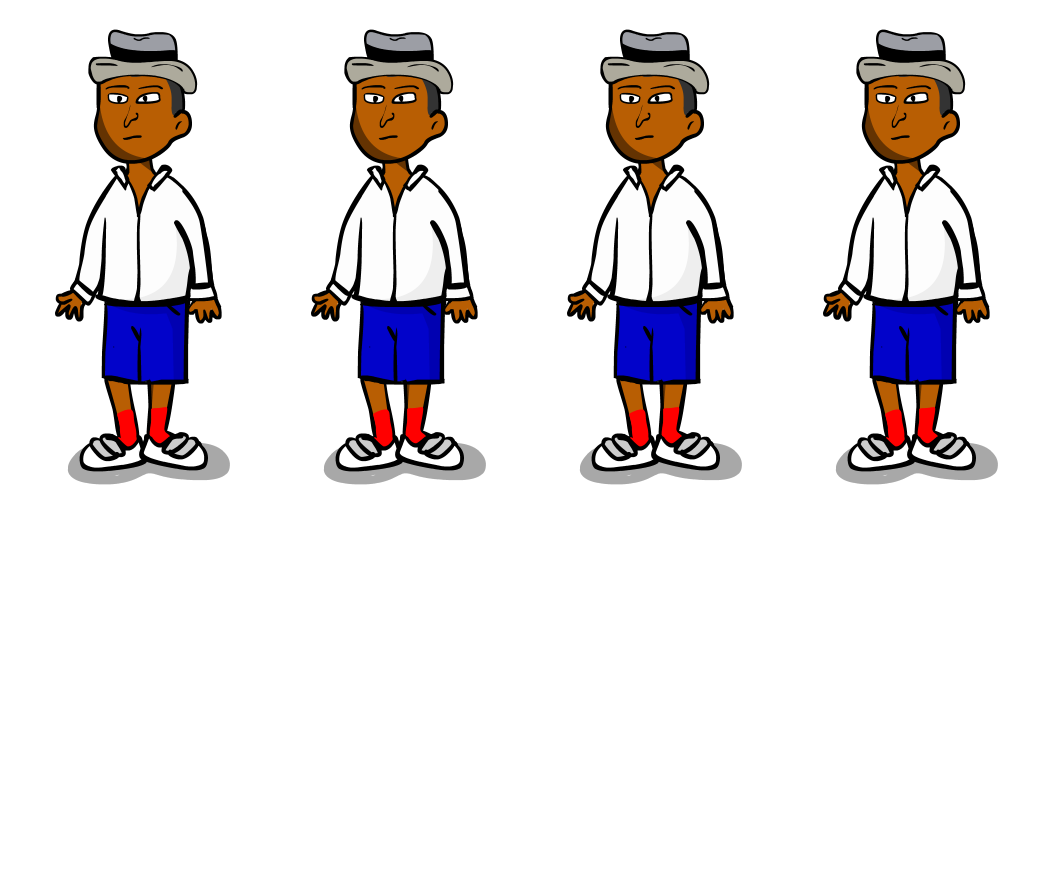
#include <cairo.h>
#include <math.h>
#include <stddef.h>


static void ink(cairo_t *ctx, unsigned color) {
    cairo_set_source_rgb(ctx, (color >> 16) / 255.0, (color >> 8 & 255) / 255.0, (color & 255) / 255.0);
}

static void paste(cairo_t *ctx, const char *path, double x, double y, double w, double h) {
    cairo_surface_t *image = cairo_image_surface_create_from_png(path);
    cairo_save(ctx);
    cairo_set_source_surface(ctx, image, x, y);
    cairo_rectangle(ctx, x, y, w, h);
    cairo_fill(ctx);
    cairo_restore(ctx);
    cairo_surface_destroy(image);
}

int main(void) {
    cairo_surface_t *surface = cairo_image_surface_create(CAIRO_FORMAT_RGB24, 1063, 872);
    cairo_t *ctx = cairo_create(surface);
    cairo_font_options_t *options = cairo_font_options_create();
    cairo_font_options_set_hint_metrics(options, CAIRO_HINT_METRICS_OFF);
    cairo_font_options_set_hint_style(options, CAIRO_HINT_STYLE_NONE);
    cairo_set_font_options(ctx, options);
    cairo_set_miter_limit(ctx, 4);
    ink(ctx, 0xFFFFFF);
    cairo_paint(ctx);
    paste(ctx, "media/2.png", 55, 76, 943, 409);
    paste(ctx, "media/3.png", 105, 85, 827, 55);
    paste(ctx, "media/1.png", 88, 29, 878, 66);
    paste(ctx, "media/5.png", 79, 299, 897, 173);
    paste(ctx, "media/4.png", 70, 164, 916, 142);
    cairo_surface_write_to_png(surface, "image.png");
    cairo_font_options_destroy(options);
    cairo_destroy(ctx);
    cairo_surface_destroy(surface);
    return 0;
}
